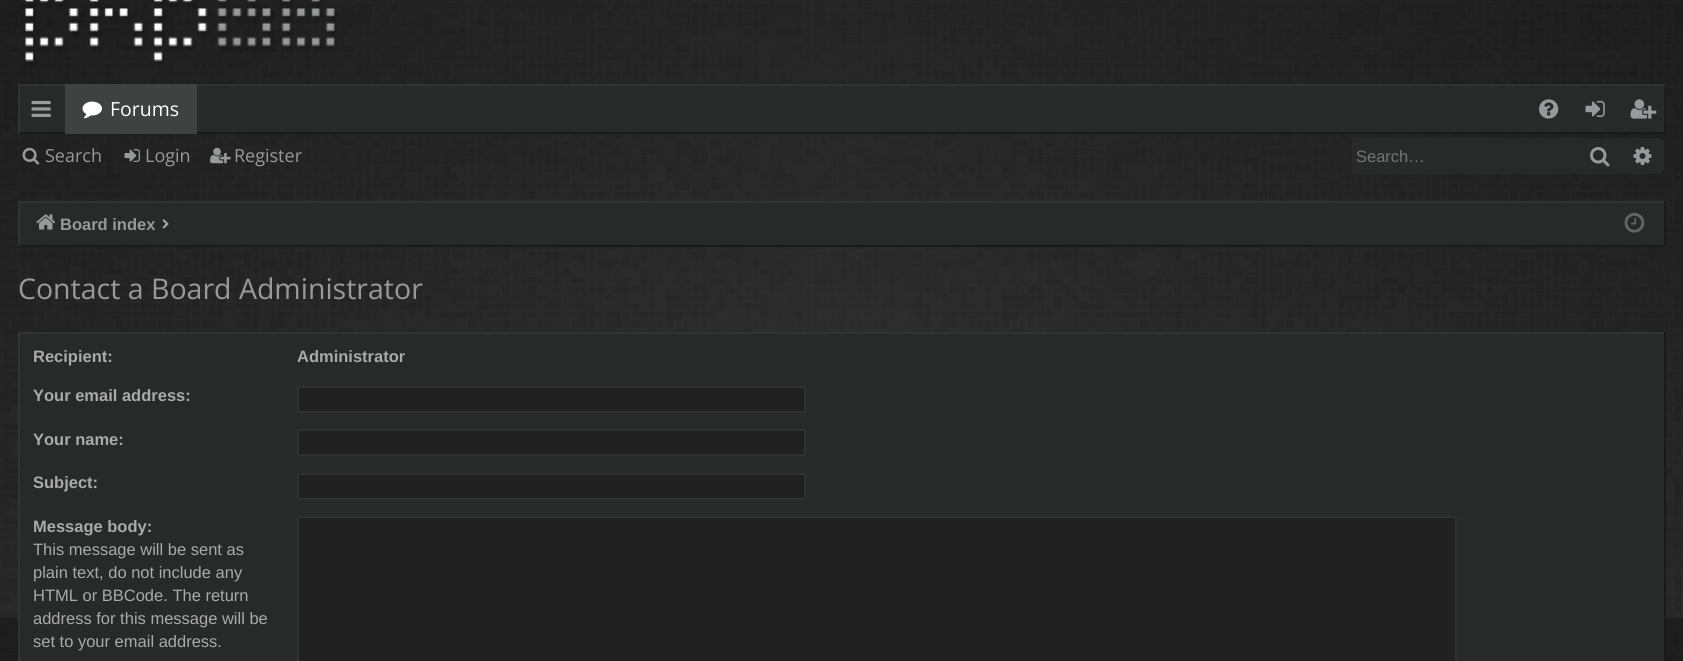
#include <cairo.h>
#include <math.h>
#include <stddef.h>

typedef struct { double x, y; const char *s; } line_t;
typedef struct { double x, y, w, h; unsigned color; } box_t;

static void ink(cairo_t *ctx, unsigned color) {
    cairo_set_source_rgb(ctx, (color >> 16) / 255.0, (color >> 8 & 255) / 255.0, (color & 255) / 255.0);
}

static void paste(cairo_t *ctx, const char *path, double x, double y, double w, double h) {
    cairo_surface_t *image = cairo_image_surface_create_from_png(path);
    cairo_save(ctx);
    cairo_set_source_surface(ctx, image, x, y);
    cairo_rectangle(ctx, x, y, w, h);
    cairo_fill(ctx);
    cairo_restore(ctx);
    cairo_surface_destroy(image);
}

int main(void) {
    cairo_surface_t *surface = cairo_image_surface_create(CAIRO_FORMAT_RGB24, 1683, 661);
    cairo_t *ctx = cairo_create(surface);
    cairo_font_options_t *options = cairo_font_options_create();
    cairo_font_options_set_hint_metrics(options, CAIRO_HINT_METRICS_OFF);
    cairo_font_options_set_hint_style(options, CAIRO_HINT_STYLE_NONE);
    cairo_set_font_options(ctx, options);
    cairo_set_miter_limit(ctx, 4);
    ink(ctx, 0x222222);
    cairo_paint(ctx);
    paste(ctx, "media/1.png", 0, 0, 1683, 661);
    paste(ctx, "media/2.png", 25, 0, 312, 65);
    ink(ctx, 0x282929);
    cairo_rectangle(ctx, 20, 86, 1644, 46);
    cairo_fill(ctx);
    cairo_save(ctx);
    cairo_rectangle(ctx, 18, 84, 1647, 50);
    cairo_clip(ctx);
    ink(ctx, 0x191A1A);
    cairo_set_fill_rule(ctx, CAIRO_FILL_RULE_EVEN_ODD);
    cairo_new_path(ctx);
    cairo_move_to(ctx, -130, -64);
    cairo_line_to(ctx, 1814, -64);
    cairo_line_to(ctx, 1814, 282);
    cairo_line_to(ctx, -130, 282);
    cairo_close_path(ctx);
    cairo_move_to(ctx, 16, 82);
    cairo_line_to(ctx, 1664, 82);
    cairo_line_to(ctx, 1664, 132);
    cairo_line_to(ctx, 16, 132);
    cairo_close_path(ctx);
    cairo_fill(ctx);
    ink(ctx, 0x323333);
    cairo_new_path(ctx);
    cairo_move_to(ctx, -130, -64);
    cairo_line_to(ctx, 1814, -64);
    cairo_line_to(ctx, 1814, 282);
    cairo_line_to(ctx, -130, 282);
    cairo_close_path(ctx);
    cairo_move_to(ctx, 20, 86);
    cairo_line_to(ctx, 1666, 86);
    cairo_line_to(ctx, 1666, 135);
    cairo_line_to(ctx, 20, 135);
    cairo_close_path(ctx);
    cairo_fill(ctx);
    cairo_restore(ctx);
    paste(ctx, "media/3.png", 31, 100, 20, 17);
    ink(ctx, 0x404141);
    cairo_rectangle(ctx, 65, 84, 132, 50);
    cairo_fill(ctx);
    paste(ctx, "media/4.png", 82, 101, 20, 18);
    cairo_select_font_face(ctx, "Open Sans", CAIRO_FONT_SLANT_NORMAL, CAIRO_FONT_WEIGHT_NORMAL);
    cairo_set_font_size(ctx, 19.5);
    ink(ctx, 0xFFFFFF);
    cairo_move_to(ctx, 110, 116);
    cairo_show_text(ctx, "Forums");
    paste(ctx, "media/5.png", 1539, 99, 20, 20);
    paste(ctx, "media/6.png", 1585, 100, 20, 17);
    paste(ctx, "media/7.png", 1630, 99, 27, 20);
    paste(ctx, "media/8.png", 22, 147, 18, 18);
    cairo_set_font_size(ctx, 18);
    ink(ctx, 0x98999A);
    cairo_move_to(ctx, 45, 162);
    cairo_show_text(ctx, "Search");
    paste(ctx, "media/9.png", 124, 149, 16, 13);
    cairo_move_to(ctx, 145, 162);
    cairo_show_text(ctx, "Login");
    paste(ctx, "media/10.png", 210, 147, 21, 17);
    cairo_move_to(ctx, 234, 162);
    cairo_show_text(ctx, "Register");
    ink(ctx, 0x282929);
    cairo_rectangle(ctx, 1352, 138, 225, 36);
    cairo_fill(ctx);
    cairo_select_font_face(ctx, "Liberation Sans", CAIRO_FONT_SLANT_NORMAL, CAIRO_FONT_WEIGHT_NORMAL);
    cairo_set_font_size(ctx, 16.5);
    ink(ctx, 0x757575);
    cairo_move_to(ctx, 1356, 162);
    cairo_show_text(ctx, "Search…");
    ink(ctx, 0x282929);
    cairo_rectangle(ctx, 1577, 138, 45, 36);
    cairo_fill(ctx);
    paste(ctx, "media/11.png", 1590, 147, 20, 20);
    cairo_new_path(ctx);
    cairo_move_to(ctx, 1622, 138);
    cairo_line_to(ctx, 1658, 138);
    cairo_curve_to(ctx, 1661.5, 138, 1664, 140.5, 1664, 144);
    cairo_line_to(ctx, 1664, 168);
    cairo_curve_to(ctx, 1664, 171.5, 1661.5, 174, 1658, 174);
    cairo_line_to(ctx, 1622, 174);
    cairo_close_path(ctx);
    cairo_fill(ctx);
    paste(ctx, "media/12.png", 1633, 147, 19, 18);
    {
        static const box_t items[] = {
            {20, 203, 1644, 42, 0x282929},
            {18, 201, 1647, 2, 0x323333},
            {1664, 201, 2, 45, 0x191A1A},
            {18, 245, 1647, 2, 0x191A1A},
            {18, 201, 2, 45, 0x323333},
        };
        for (size_t i = 0; i < sizeof items / sizeof *items; i++) {
            ink(ctx, items[i].color);
            cairo_rectangle(ctx, items[i].x, items[i].y, items[i].w, items[i].h);
            cairo_fill(ctx);
        }
    }
    paste(ctx, "media/13.png", 36, 214, 20, 16);
    cairo_select_font_face(ctx, "Liberation Sans", CAIRO_FONT_SLANT_NORMAL, CAIRO_FONT_WEIGHT_BOLD);
    ink(ctx, 0x98999A);
    cairo_move_to(ctx, 60, 230);
    cairo_show_text(ctx, "Board index");
    paste(ctx, "media/14.png", 162, 219, 7, 10);
    paste(ctx, "media/15.png", 1624, 212, 21, 21);
    cairo_select_font_face(ctx, "Open Sans", CAIRO_FONT_SLANT_NORMAL, CAIRO_FONT_WEIGHT_NORMAL);
    cairo_set_font_size(ctx, 28.5);
    cairo_move_to(ctx, 18, 299);
    cairo_show_text(ctx, "Contact a Board Administrator");
    {
        static const box_t items[] = {
            {20, 334, 1644, 327, 0x282929},
            {18, 332, 1647, 2, 0x323333},
            {1664, 332, 2, 329, 0x191A1A},
            {18, 332, 2, 329, 0x323333},
        };
        for (size_t i = 0; i < sizeof items / sizeof *items; i++) {
            ink(ctx, items[i].color);
            cairo_rectangle(ctx, items[i].x, items[i].y, items[i].w, items[i].h);
            cairo_fill(ctx);
        }
    }
    cairo_select_font_face(ctx, "Liberation Sans", CAIRO_FONT_SLANT_NORMAL, CAIRO_FONT_WEIGHT_BOLD);
    cairo_set_font_size(ctx, 16.5);
    ink(ctx, 0xAAAAAA);
    {
        static const line_t items[] = {
            {33, 362, "Recipient:"},
            {297, 362, "Administrator"},
            {33, 401, "Your email address:"},
        };
        for (size_t i = 0; i < sizeof items / sizeof *items; i++) {
            cairo_move_to(ctx, items[i].x, items[i].y);
            cairo_show_text(ctx, items[i].s);
        }
    }
    ink(ctx, 0x212122);
    cairo_rectangle(ctx, 298, 387, 507, 25);
    cairo_fill_preserve(ctx);
    ink(ctx, 0x313131);
    cairo_stroke(ctx);
    ink(ctx, 0xAAAAAA);
    cairo_move_to(ctx, 33, 445);
    cairo_show_text(ctx, "Your name:");
    ink(ctx, 0x212122);
    cairo_rectangle(ctx, 298, 430, 507, 25);
    cairo_fill_preserve(ctx);
    ink(ctx, 0x313131);
    cairo_stroke(ctx);
    ink(ctx, 0xAAAAAA);
    cairo_move_to(ctx, 33, 488);
    cairo_show_text(ctx, "Subject:");
    ink(ctx, 0x212122);
    cairo_rectangle(ctx, 298, 474, 507, 25);
    cairo_fill_preserve(ctx);
    ink(ctx, 0x313131);
    cairo_stroke(ctx);
    ink(ctx, 0xAAAAAA);
    cairo_move_to(ctx, 33, 532);
    cairo_show_text(ctx, "Message body:");
    cairo_select_font_face(ctx, "Liberation Sans", CAIRO_FONT_SLANT_NORMAL, CAIRO_FONT_WEIGHT_NORMAL);
    {
        static const line_t items[] = {
            {33, 555, "This message will be sent as"},
            {33, 578, "plain text, do not include any"},
            {33, 601, "HTML or BBCode. The return"},
            {33, 624, "address for this message will be"},
            {33, 647, "set to your email address."},
        };
        for (size_t i = 0; i < sizeof items / sizeof *items; i++) {
            cairo_move_to(ctx, items[i].x, items[i].y);
            cairo_show_text(ctx, items[i].s);
        }
    }
    ink(ctx, 0x212122);
    cairo_rectangle(ctx, 298, 517, 1158, 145);
    cairo_fill_preserve(ctx);
    ink(ctx, 0x313131);
    cairo_stroke(ctx);
    cairo_surface_write_to_png(surface, "image.png");
    cairo_font_options_destroy(options);
    cairo_destroy(ctx);
    cairo_surface_destroy(surface);
    return 0;
}
